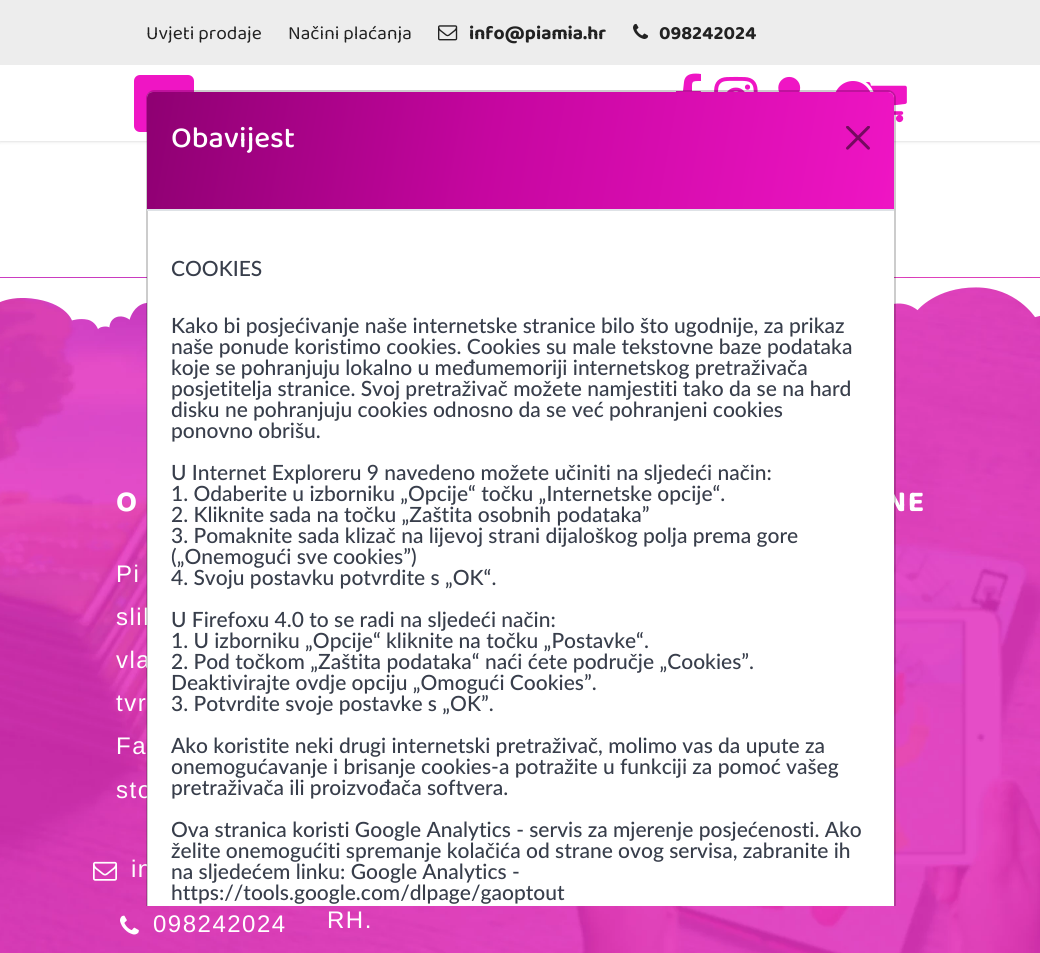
#include <cairo.h>
#include <math.h>
#include <stddef.h>

typedef struct { double x, y; const char *s; } line_t;

static void ink(cairo_t *ctx, unsigned color) {
    cairo_set_source_rgb(ctx, (color >> 16) / 255.0, (color >> 8 & 255) / 255.0, (color & 255) / 255.0);
}

static void write_spaced(cairo_t *ctx, double x, double y, const char *s, double letter, double word) {
    cairo_move_to(ctx, x, y);
    while (*s) {
        char ch[5] = {0};
        int n = 0;
        do ch[n++] = *s++; while ((*s & 0xC0) == 0x80);
        cairo_show_text(ctx, ch);
        cairo_rel_move_to(ctx, letter + word * (*ch == ' '), 0);
    }
}

static void round_path(cairo_t *ctx, double x, double y, double w, double h, double r) {
    cairo_new_sub_path(ctx);
    cairo_arc(ctx, x + w - r, y + h - r, r, 0, M_PI / 2);
    cairo_arc(ctx, x + r, y + h - r, r, M_PI / 2, M_PI);
    cairo_arc(ctx, x + r, y + r, r, M_PI, 1.5 * M_PI);
    cairo_arc(ctx, x + w - r, y + r, r, 1.5 * M_PI, 2 * M_PI);
    cairo_close_path(ctx);
}

static void blur_box(cairo_t *ctx, double x, double y, double w, double h, double r, double blur, double alpha) {
    cairo_push_group_with_content(ctx, CAIRO_CONTENT_ALPHA);
    cairo_set_operator(ctx, CAIRO_OPERATOR_SOURCE);
    for (int i = 15; i >= -15 && fmin(w, h) + blur * i / 3 > 0; i -= 2) {
        double e = blur * i / 6;
        cairo_set_source_rgba(ctx, 0, 0, 0, alpha * erfc((i - 1) / 8.5) / 2);
        round_path(ctx, x - e, y - e, w + 2 * e, h + 2 * e, fmax(0, fmin(r + e + blur * .6, fmin(w, h) / 2 + e)));
        cairo_fill(ctx);
    }
    cairo_pattern_t *soft = cairo_pop_group(ctx);
    cairo_mask(ctx, soft);
    cairo_pattern_destroy(soft);
}

static void paste(cairo_t *ctx, const char *path, double x, double y, double w, double h) {
    cairo_surface_t *image = cairo_image_surface_create_from_png(path);
    cairo_save(ctx);
    cairo_set_source_surface(ctx, image, x, y);
    cairo_rectangle(ctx, x, y, w, h);
    cairo_fill(ctx);
    cairo_restore(ctx);
    cairo_surface_destroy(image);
}

int main(void) {
    cairo_surface_t *surface = cairo_image_surface_create(CAIRO_FORMAT_RGB24, 1040, 953);
    cairo_t *ctx = cairo_create(surface);
    cairo_font_options_t *options = cairo_font_options_create();
    cairo_font_options_set_hint_metrics(options, CAIRO_HINT_METRICS_OFF);
    cairo_font_options_set_hint_style(options, CAIRO_HINT_STYLE_NONE);
    cairo_set_font_options(ctx, options);
    cairo_set_miter_limit(ctx, 4);
    cairo_pattern_t *gradient;
    ink(ctx, 0xFFFFFF);
    cairo_paint(ctx);
    ink(ctx, 0x000000);
    blur_box(ctx, 0, 0, 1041, 141, 0, 2, 0.1);
    blur_box(ctx, 0, 0, 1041, 141, 0, 2, 0.1);
    ink(ctx, 0xFFFFFF);
    cairo_rectangle(ctx, 0, 65, 1040, 76);
    cairo_fill(ctx);
    ink(ctx, 0xEDEDED);
    cairo_rectangle(ctx, 0, 0, 1040, 65);
    cairo_fill(ctx);
    cairo_select_font_face(ctx, "Baloo 2", CAIRO_FONT_SLANT_NORMAL, CAIRO_FONT_WEIGHT_NORMAL);
    cairo_set_font_size(ctx, 19.25);
    ink(ctx, 0x222222);
    cairo_move_to(ctx, 146, 39);
    cairo_show_text(ctx, "Uvjeti prodaje");
    cairo_move_to(ctx, 288, 39);
    cairo_show_text(ctx, "Načini plaćanja");
    paste(ctx, "media/1.png", 438, 25, 20, 16);
    cairo_select_font_face(ctx, "Baloo 2", CAIRO_FONT_SLANT_NORMAL, CAIRO_FONT_WEIGHT_BOLD);
    cairo_move_to(ctx, 469, 39);
    cairo_show_text(ctx, "info@piamia.hr");
    paste(ctx, "media/2.png", 633, 23, 16, 16);
    cairo_move_to(ctx, 659, 39);
    cairo_show_text(ctx, "098242024");
    ink(ctx, 0xEF15C4);
    round_path(ctx, 134, 75, 60, 57, 6);
    cairo_fill(ctx);
    cairo_new_path(ctx);
    cairo_move_to(ctx, 701, 74);
    cairo_line_to(ctx, 701, 81);
    cairo_curve_to(ctx, 691, 81, 692, 81, 692, 91);
    cairo_line_to(ctx, 701, 91);
    cairo_line_to(ctx, 699, 99);
    cairo_line_to(ctx, 692, 99);
    cairo_line_to(ctx, 692, 121);
    cairo_line_to(ctx, 683, 121);
    cairo_line_to(ctx, 683, 99);
    cairo_line_to(ctx, 676, 99);
    cairo_line_to(ctx, 676, 91);
    cairo_line_to(ctx, 683, 91);
    cairo_line_to(ctx, 684, 82);
    cairo_curve_to(ctx, 685, 73, 694, 73, 701, 74);
    cairo_close_path(ctx);
    cairo_fill(ctx);
    paste(ctx, "media/3.png", 714, 76, 44, 16);
    paste(ctx, "media/4.png", 778, 76, 23, 16);
    paste(ctx, "media/5.png", 865, 82, 42, 41);
    cairo_arc(ctx, 853, 100, 20.5, 0, 2 * M_PI);
    cairo_fill_preserve(ctx);
    ink(ctx, 0xFFFFFF);
    cairo_set_line_width(ctx, 3);
    cairo_stroke(ctx);
    paste(ctx, "media/7.png", 0, 277, 1040, 676);
    paste(ctx, "media/8.png", 0, 278, 1040, 52);
    cairo_new_path(ctx);
    cairo_move_to(ctx, 153, 92);
    cairo_line_to(ctx, 888, 92);
    cairo_curve_to(ctx, 891.5, 92, 894, 94.5, 894, 98);
    cairo_line_to(ctx, 894, 906);
    cairo_line_to(ctx, 147, 906);
    cairo_line_to(ctx, 147, 98);
    cairo_curve_to(ctx, 147, 94.5, 149.5, 92, 153, 92);
    cairo_close_path(ctx);
    cairo_fill(ctx);
    cairo_select_font_face(ctx, "Liberation Sans", CAIRO_FONT_SLANT_NORMAL, CAIRO_FONT_WEIGHT_NORMAL);
    cairo_set_font_size(ctx, 24);
    {
        static const line_t items[] = {
            {116, 625, "slik"},
            {116, 668, "vla"},
            {116, 798, "sto"},
            {131, 877, "in"},
        };
        for (size_t i = 0; i < sizeof items / sizeof *items; i++) {
            write_spaced(ctx, items[i].x, items[i].y, items[i].s, 1.5, 0);
        }
    }
    cairo_select_font_face(ctx, "Baloo 2", CAIRO_FONT_SLANT_NORMAL, CAIRO_FONT_WEIGHT_BOLD);
    cairo_set_font_size(ctx, 30);
    write_spaced(ctx, 886, 511, "NE", 1.5, 0);
    cairo_set_source_rgba(ctx, 0, 0, 0, 0.2);
    cairo_new_path(ctx);
    cairo_move_to(ctx, 154, 90);
    cairo_curve_to(ctx, 150, 90, 146, 94, 146, 98);
    cairo_line_to(ctx, 146, 906);
    cairo_line_to(ctx, 148, 906);
    cairo_line_to(ctx, 148, 98);
    cairo_curve_to(ctx, 148, 95, 151, 92, 154, 92);
    cairo_line_to(ctx, 888, 92);
    cairo_curve_to(ctx, 891, 92, 894, 95, 894, 98);
    cairo_line_to(ctx, 894, 906);
    cairo_line_to(ctx, 896, 906);
    cairo_line_to(ctx, 896, 98);
    cairo_curve_to(ctx, 896, 94, 892, 90, 888, 90);
    cairo_close_path(ctx);
    cairo_fill(ctx);
    gradient = cairo_pattern_create_linear(893, 215, 148, 84);
    cairo_pattern_add_color_stop_rgba(gradient, 0, 0.937, 0.082, 0.769, 1);
    cairo_pattern_add_color_stop_rgba(gradient, 0.54, 0.776, 0.024, 0.627, 1);
    cairo_pattern_add_color_stop_rgba(gradient, 1, 0.557, 0, 0.447, 1);
    cairo_set_source(ctx, gradient);
    cairo_pattern_destroy(gradient);
    cairo_new_path(ctx);
    cairo_move_to(ctx, 153, 92);
    cairo_line_to(ctx, 888, 92);
    cairo_curve_to(ctx, 891.5, 92, 894, 94.5, 894, 98);
    cairo_line_to(ctx, 894, 209);
    cairo_line_to(ctx, 147, 209);
    cairo_line_to(ctx, 147, 98);
    cairo_curve_to(ctx, 147, 94.5, 149.5, 92, 153, 92);
    cairo_close_path(ctx);
    cairo_fill(ctx);
    ink(ctx, 0xDEE2E6);
    cairo_rectangle(ctx, 147, 209, 747, 2);
    cairo_fill(ctx);
    cairo_select_font_face(ctx, "Baloo 2 Medium", CAIRO_FONT_SLANT_NORMAL, CAIRO_FONT_WEIGHT_NORMAL);
    ink(ctx, 0xFFFFFF);
    cairo_move_to(ctx, 171, 147);
    cairo_show_text(ctx, "Obavijest");
    paste(ctx, "media/6.png", 846, 126, 24, 24);
    cairo_select_font_face(ctx, "Lato Medium", CAIRO_FONT_SLANT_NORMAL, CAIRO_FONT_WEIGHT_NORMAL);
    cairo_set_font_size(ctx, 21);
    ink(ctx, 0x383E4B);
    {
        static const line_t items[] = {
            {171, 276, "COOKIES"},
            {171, 333, "Kako bi posjećivanje naše internetske stranice bilo što ugodnije, za prikaz"},
            {171, 354, "naše ponude koristimo cookies. Cookies su male tekstovne baze podataka"},
            {171, 375, "koje se pohranjuju lokalno u međumemoriji internetskog pretraživača"},
            {171, 396, "posjetitelja stranice. Svoj pretraživač možete namjestiti tako da se na hard"},
            {171, 417, "disku ne pohranjuju cookies odnosno da se već pohranjeni cookies"},
            {171, 438, "ponovno obrišu."},
            {171, 480, "U Internet Exploreru 9 navedeno možete učiniti na sljedeći način:"},
            {171, 501, "1. Odaberite u izborniku „Opcije“ točku „Internetske opcije“."},
            {171, 522, "2. Kliknite sada na točku „Zaštita osobnih podataka”"},
            {171, 543, "3. Pomaknite sada klizač na lijevoj strani dijaloškog polja prema gore"},
            {171, 564, "(„Onemogući sve cookies”)"},
            {171, 585, "4. Svoju postavku potvrdite s „OK“."},
            {171, 627, "U Firefoxu 4.0 to se radi na sljedeći način:"},
            {171, 648, "1. U izborniku „Opcije“ kliknite na točku „Postavke“."},
            {171, 669, "2. Pod točkom „Zaštita podataka“ naći ćete područje „Cookies”."},
            {171, 690, "Deaktivirajte ovdje opciju „Omogući Cookies”."},
            {171, 711, "3. Potvrdite svoje postavke s „OK”."},
            {171, 753, "Ako koristite neki drugi internetski pretraživač, molimo vas da upute za"},
            {171, 774, "onemogućavanje i brisanje cookies-a potražite u funkciji za pomoć vašeg"},
            {171, 795, "pretraživača ili proizvođača softvera."},
            {171, 837, "Ova stranica koristi Google Analytics - servis za mjerenje posjećenosti. Ako"},
            {171, 858, "želite onemogućiti spremanje kolačića od strane ovog servisa, zabranite ih"},
            {171, 879, "na sljedećem linku: Google Analytics -"},
            {171, 900, "https://tools.google.com/dlpage/gaoptout"},
        };
        for (size_t i = 0; i < sizeof items / sizeof *items; i++) {
            cairo_move_to(ctx, items[i].x, items[i].y);
            cairo_show_text(ctx, items[i].s);
        }
    }
    cairo_select_font_face(ctx, "Baloo 2", CAIRO_FONT_SLANT_NORMAL, CAIRO_FONT_WEIGHT_BOLD);
    cairo_set_font_size(ctx, 30);
    ink(ctx, 0xFFFFFF);
    write_spaced(ctx, 116, 511, "O", 1.5, 0);
    cairo_select_font_face(ctx, "Liberation Sans", CAIRO_FONT_SLANT_NORMAL, CAIRO_FONT_WEIGHT_NORMAL);
    cairo_set_font_size(ctx, 24);
    {
        static const line_t items[] = {
            {116, 582, "Pi"},
            {116, 711, "tvr"},
            {116, 754, "Fa"},
        };
        for (size_t i = 0; i < sizeof items / sizeof *items; i++) {
            write_spaced(ctx, items[i].x, items[i].y, items[i].s, 1.5, 0);
        }
    }
    paste(ctx, "media/9.png", 93, 861, 24, 20);
    paste(ctx, "media/10.png", 120, 915, 19, 20);
    write_spaced(ctx, 153, 932, "098242024", 1.5, 0);
    write_spaced(ctx, 327, 928, "RH.", 1.5, 0);
    cairo_surface_write_to_png(surface, "image.png");
    cairo_font_options_destroy(options);
    cairo_destroy(ctx);
    cairo_surface_destroy(surface);
    return 0;
}
